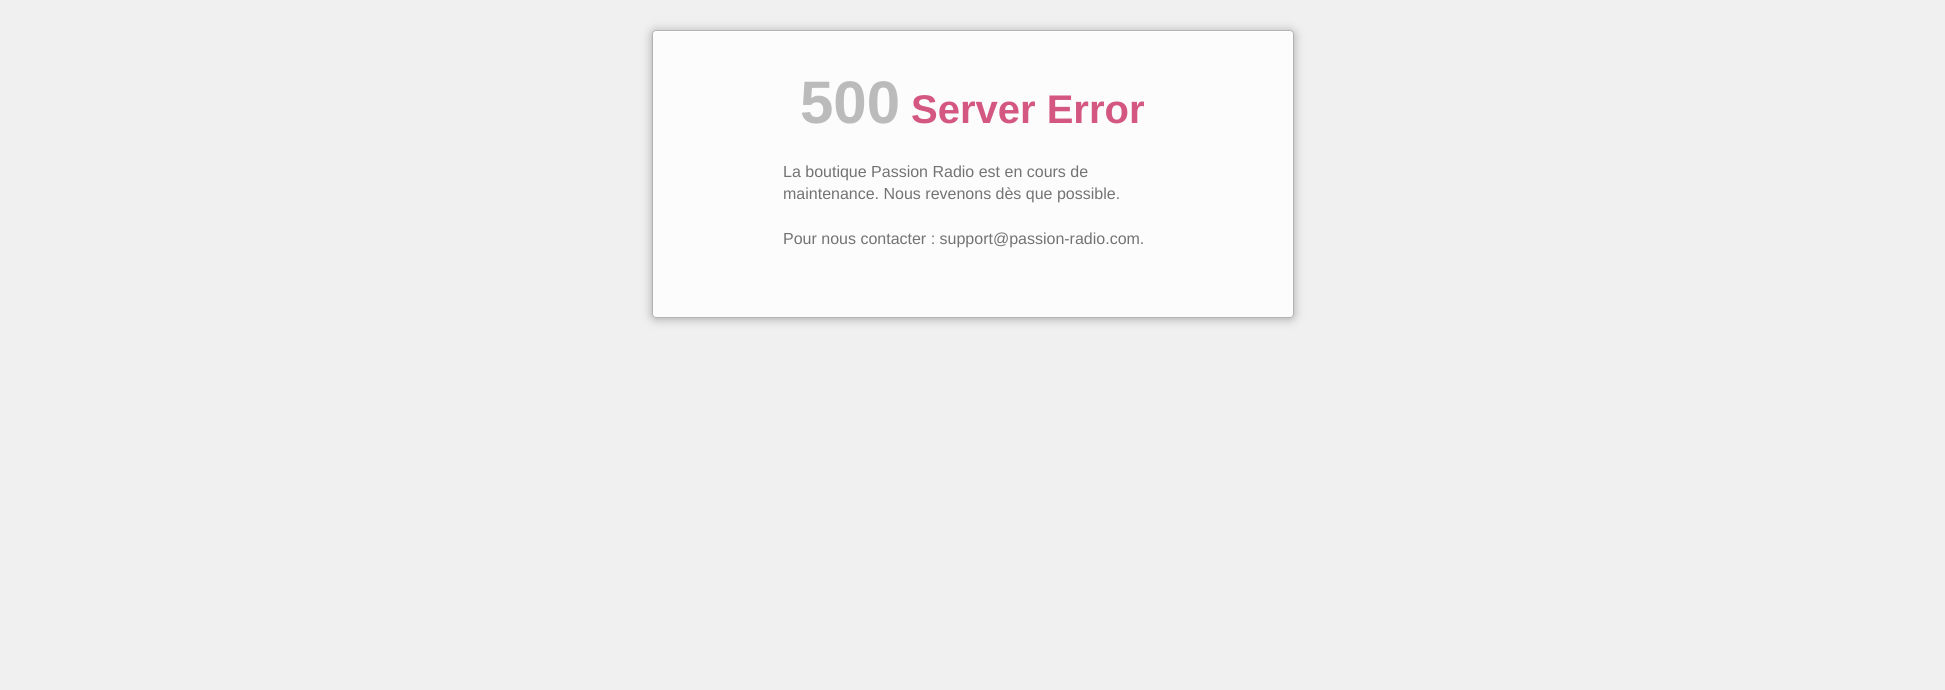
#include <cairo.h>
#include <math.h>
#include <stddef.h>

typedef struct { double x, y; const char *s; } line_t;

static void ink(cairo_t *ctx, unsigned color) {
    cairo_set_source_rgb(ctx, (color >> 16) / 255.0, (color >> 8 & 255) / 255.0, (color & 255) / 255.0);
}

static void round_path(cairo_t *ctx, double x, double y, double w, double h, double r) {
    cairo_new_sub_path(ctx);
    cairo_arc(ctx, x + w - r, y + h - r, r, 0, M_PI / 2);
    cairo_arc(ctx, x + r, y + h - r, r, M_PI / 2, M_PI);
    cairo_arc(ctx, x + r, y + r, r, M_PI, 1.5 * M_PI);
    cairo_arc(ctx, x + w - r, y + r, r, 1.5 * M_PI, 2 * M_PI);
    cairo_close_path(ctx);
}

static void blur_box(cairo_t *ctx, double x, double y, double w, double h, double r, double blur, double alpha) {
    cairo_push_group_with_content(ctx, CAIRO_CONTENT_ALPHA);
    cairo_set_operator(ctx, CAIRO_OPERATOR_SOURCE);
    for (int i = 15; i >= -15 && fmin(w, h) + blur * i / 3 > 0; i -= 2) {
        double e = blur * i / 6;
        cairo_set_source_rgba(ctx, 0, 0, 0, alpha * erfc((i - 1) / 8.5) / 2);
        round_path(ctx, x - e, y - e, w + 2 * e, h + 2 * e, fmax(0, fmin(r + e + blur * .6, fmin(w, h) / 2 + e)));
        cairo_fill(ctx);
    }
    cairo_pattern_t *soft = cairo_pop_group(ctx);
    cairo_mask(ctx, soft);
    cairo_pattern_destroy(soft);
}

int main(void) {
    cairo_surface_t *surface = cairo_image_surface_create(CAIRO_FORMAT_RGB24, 1945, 690);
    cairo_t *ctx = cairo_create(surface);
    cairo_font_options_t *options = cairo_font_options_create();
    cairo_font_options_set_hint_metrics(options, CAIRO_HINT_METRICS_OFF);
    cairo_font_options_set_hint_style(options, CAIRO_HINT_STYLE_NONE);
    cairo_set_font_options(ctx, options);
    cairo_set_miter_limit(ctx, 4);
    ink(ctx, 0xF0F0F0);
    cairo_paint(ctx);
    ink(ctx, 0xA7A7A7);
    blur_box(ctx, 652, 31, 642, 288, 4, 5, 1);
    ink(ctx, 0xFCFCFC);
    round_path(ctx, 652, 30, 642, 288, 4);
    cairo_fill(ctx);
    ink(ctx, 0xFFFFFF);
    cairo_new_path(ctx);
    cairo_move_to(ctx, 656, 32);
    cairo_line_to(ctx, 1290, 32);
    cairo_curve_to(ctx, 1292, 32, 1293, 33, 1293, 35);
    cairo_line_to(ctx, 1293, 34);
    cairo_curve_to(ctx, 1293, 32, 1292, 31, 1290, 31);
    cairo_line_to(ctx, 656, 31);
    cairo_curve_to(ctx, 654, 31, 653, 32, 653, 34);
    cairo_line_to(ctx, 653, 35);
    cairo_curve_to(ctx, 653, 33, 654, 32, 656, 32);
    cairo_close_path(ctx);
    cairo_fill(ctx);
    round_path(ctx, 652.5, 30.5, 641, 287, 3.5);
    ink(ctx, 0xB3B3B3);
    cairo_set_line_width(ctx, 1);
    cairo_stroke(ctx);
    cairo_select_font_face(ctx, "Liberation Sans", CAIRO_FONT_SLANT_NORMAL, CAIRO_FONT_WEIGHT_BOLD);
    cairo_set_font_size(ctx, 60);
    ink(ctx, 0xBBBBBB);
    cairo_move_to(ctx, 800, 123);
    cairo_show_text(ctx, "500");
    cairo_set_font_size(ctx, 40);
    ink(ctx, 0xD35780);
    cairo_move_to(ctx, 911, 123);
    cairo_show_text(ctx, "Server Error");
    cairo_select_font_face(ctx, "Liberation Sans", CAIRO_FONT_SLANT_NORMAL, CAIRO_FONT_WEIGHT_NORMAL);
    cairo_set_font_size(ctx, 16);
    ink(ctx, 0x737373);
    {
        static const line_t items[] = {
            {783, 177, "La boutique Passion Radio est en cours de"},
            {783, 199, "maintenance. Nous revenons dès que possible."},
            {783, 244, "Pour nous contacter : support@passion-radio.com."},
        };
        for (size_t i = 0; i < sizeof items / sizeof *items; i++) {
            cairo_move_to(ctx, items[i].x, items[i].y);
            cairo_show_text(ctx, items[i].s);
        }
    }
    cairo_surface_write_to_png(surface, "image.png");
    cairo_font_options_destroy(options);
    cairo_destroy(ctx);
    cairo_surface_destroy(surface);
    return 0;
}
